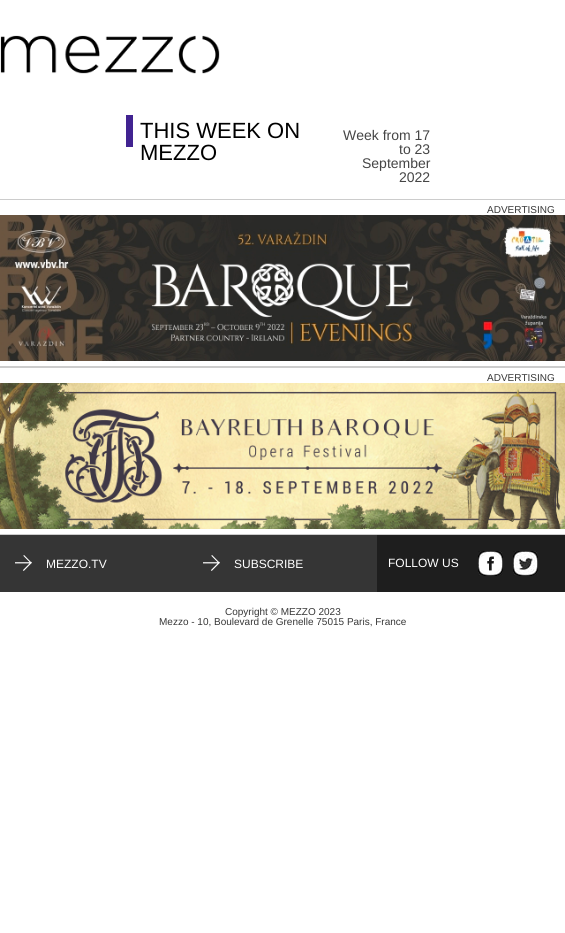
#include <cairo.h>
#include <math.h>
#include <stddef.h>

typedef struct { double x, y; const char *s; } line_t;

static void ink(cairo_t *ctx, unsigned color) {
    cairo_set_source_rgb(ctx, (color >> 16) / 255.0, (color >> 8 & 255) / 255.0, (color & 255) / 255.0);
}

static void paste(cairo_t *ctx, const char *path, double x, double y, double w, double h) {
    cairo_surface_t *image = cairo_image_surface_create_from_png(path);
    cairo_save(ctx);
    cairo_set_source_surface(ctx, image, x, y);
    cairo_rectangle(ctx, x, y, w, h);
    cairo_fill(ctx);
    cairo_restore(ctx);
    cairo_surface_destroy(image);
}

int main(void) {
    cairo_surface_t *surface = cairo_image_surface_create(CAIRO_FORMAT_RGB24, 565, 933);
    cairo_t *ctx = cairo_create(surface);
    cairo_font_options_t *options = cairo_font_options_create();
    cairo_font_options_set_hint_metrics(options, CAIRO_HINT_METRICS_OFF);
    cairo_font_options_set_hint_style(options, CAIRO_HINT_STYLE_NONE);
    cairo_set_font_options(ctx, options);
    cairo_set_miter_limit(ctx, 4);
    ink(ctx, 0xFFFFFF);
    cairo_paint(ctx);
    paste(ctx, "media/1.png", 0, 35, 220, 39);
    ink(ctx, 0x412391);
    cairo_rectangle(ctx, 126, 115, 7, 32);
    cairo_fill(ctx);
    cairo_select_font_face(ctx, "Liberation Sans", CAIRO_FONT_SLANT_NORMAL, CAIRO_FONT_WEIGHT_NORMAL);
    cairo_set_font_size(ctx, 22);
    ink(ctx, 0x000000);
    cairo_move_to(ctx, 140, 138);
    cairo_show_text(ctx, "THIS WEEK ON");
    cairo_move_to(ctx, 140, 160);
    cairo_show_text(ctx, "MEZZO");
    cairo_set_font_size(ctx, 14);
    ink(ctx, 0x454545);
    {
        static const line_t items[] = {
            {343, 140, "Week from 17"},
            {399, 154, "to 23"},
            {362, 168, "September"},
            {399, 182, "2022"},
        };
        for (size_t i = 0; i < sizeof items / sizeof *items; i++) {
            cairo_move_to(ctx, items[i].x, items[i].y);
            cairo_show_text(ctx, items[i].s);
        }
    }
    ink(ctx, 0xCCCCCC);
    cairo_rectangle(ctx, 0, 199, 565, 1);
    cairo_fill(ctx);
    cairo_set_font_size(ctx, 10);
    ink(ctx, 0x373737);
    cairo_move_to(ctx, 487, 213);
    cairo_show_text(ctx, "ADVERTISING");
    paste(ctx, "media/2.png", 0, 215, 565, 146);
    ink(ctx, 0xCCCCCC);
    cairo_rectangle(ctx, 0, 366, 565, 2);
    cairo_fill(ctx);
    ink(ctx, 0x373737);
    cairo_move_to(ctx, 487, 381);
    cairo_show_text(ctx, "ADVERTISING");
    paste(ctx, "media/3.png", 0, 383, 565, 146);
    ink(ctx, 0xCCCCCC);
    cairo_rectangle(ctx, 0, 534, 565, 1);
    cairo_fill(ctx);
    ink(ctx, 0x353535);
    cairo_rectangle(ctx, 0, 535, 377, 57);
    cairo_fill(ctx);
    paste(ctx, "media/4.png", 15, 555, 17, 16);
    cairo_set_font_size(ctx, 12);
    ink(ctx, 0xFFFFFF);
    cairo_move_to(ctx, 46, 568);
    cairo_show_text(ctx, "MEZZO.TV");
    paste(ctx, "media/4.png", 203, 555, 17, 16);
    cairo_move_to(ctx, 234, 568);
    cairo_show_text(ctx, "SUBSCRIBE");
    ink(ctx, 0x1E1E1E);
    cairo_rectangle(ctx, 377, 535, 188, 57);
    cairo_fill(ctx);
    ink(ctx, 0xFFFFFF);
    cairo_move_to(ctx, 388, 567);
    cairo_show_text(ctx, "FOLLOW US");
    paste(ctx, "media/5.png", 478, 551, 25, 25);
    paste(ctx, "media/6.png", 513, 551, 25, 25);
    cairo_set_font_size(ctx, 10);
    ink(ctx, 0x373737);
    cairo_move_to(ctx, 225, 615);
    cairo_show_text(ctx, "Copyright © MEZZO 2023");
    cairo_move_to(ctx, 159, 625);
    cairo_show_text(ctx, "Mezzo - 10, Boulevard de Grenelle 75015 Paris, France");
    cairo_surface_write_to_png(surface, "image.png");
    cairo_font_options_destroy(options);
    cairo_destroy(ctx);
    cairo_surface_destroy(surface);
    return 0;
}
